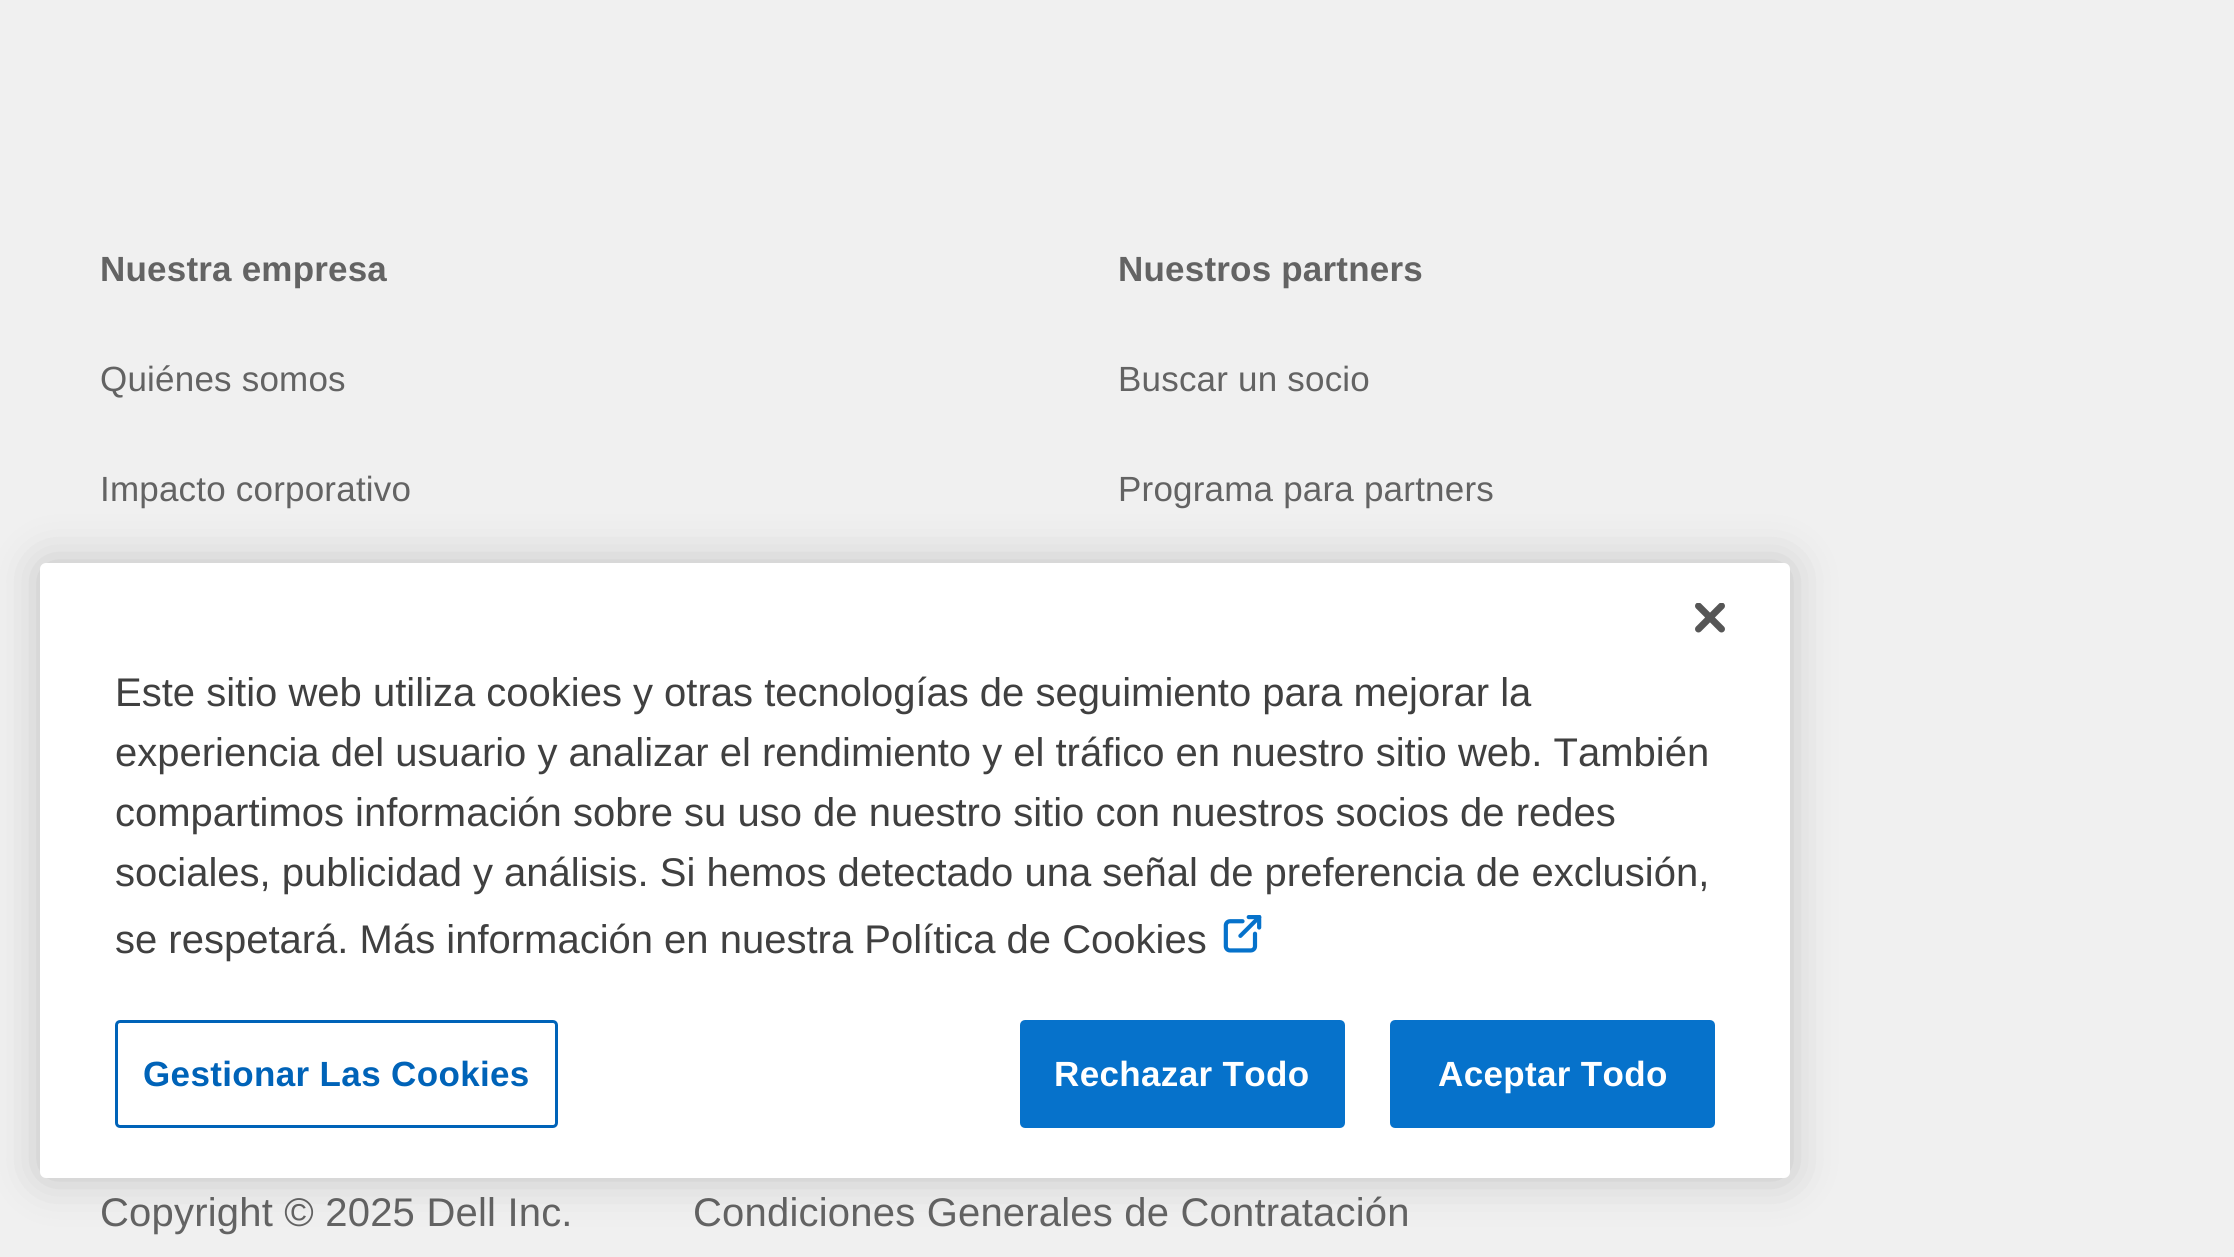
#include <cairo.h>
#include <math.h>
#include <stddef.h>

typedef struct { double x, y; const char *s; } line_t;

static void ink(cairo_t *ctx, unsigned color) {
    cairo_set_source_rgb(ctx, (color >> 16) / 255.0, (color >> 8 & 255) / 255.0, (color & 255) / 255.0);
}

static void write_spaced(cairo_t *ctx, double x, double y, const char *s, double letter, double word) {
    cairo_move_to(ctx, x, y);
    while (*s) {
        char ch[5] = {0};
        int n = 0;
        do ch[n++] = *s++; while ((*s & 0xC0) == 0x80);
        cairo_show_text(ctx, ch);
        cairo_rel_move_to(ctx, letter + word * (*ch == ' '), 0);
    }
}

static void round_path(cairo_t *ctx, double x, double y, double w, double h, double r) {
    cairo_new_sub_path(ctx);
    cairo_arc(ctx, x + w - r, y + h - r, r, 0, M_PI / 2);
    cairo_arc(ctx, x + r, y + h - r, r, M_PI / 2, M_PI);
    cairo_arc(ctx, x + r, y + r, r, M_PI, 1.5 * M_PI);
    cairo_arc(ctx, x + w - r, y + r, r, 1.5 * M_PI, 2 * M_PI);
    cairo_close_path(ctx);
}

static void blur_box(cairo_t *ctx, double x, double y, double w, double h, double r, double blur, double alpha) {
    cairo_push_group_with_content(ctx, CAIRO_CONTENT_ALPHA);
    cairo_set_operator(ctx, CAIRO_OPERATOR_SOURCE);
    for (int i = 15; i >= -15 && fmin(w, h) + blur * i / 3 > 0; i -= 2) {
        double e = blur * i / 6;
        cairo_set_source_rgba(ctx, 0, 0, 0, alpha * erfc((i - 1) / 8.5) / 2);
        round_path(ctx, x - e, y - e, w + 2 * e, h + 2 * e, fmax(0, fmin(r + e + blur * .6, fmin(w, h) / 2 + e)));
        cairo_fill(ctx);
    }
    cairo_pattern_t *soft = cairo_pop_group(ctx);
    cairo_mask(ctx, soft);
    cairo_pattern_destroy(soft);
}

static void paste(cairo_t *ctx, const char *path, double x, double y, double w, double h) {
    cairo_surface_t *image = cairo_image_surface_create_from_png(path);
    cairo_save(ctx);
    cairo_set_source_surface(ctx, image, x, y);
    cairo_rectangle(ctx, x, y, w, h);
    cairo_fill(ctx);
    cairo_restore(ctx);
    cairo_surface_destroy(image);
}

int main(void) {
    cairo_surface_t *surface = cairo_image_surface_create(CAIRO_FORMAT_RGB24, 2234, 1257);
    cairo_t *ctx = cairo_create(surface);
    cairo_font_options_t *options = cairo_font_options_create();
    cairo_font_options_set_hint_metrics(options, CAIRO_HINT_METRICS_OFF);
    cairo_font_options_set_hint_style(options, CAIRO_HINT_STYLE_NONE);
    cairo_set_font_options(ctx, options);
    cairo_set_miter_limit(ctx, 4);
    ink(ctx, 0xF0F0F0);
    cairo_paint(ctx);
    cairo_select_font_face(ctx, "Liberation Sans", CAIRO_FONT_SLANT_NORMAL, CAIRO_FONT_WEIGHT_BOLD);
    cairo_set_font_size(ctx, 35);
    ink(ctx, 0x636363);
    write_spaced(ctx, 100, 281, "Nuestra empresa", 0.2, 0);
    cairo_select_font_face(ctx, "Liberation Sans", CAIRO_FONT_SLANT_NORMAL, CAIRO_FONT_WEIGHT_NORMAL);
    write_spaced(ctx, 100, 391, "Quiénes somos", 0.2, 0);
    write_spaced(ctx, 100, 501, "Impacto corporativo", 0.2, 0);
    cairo_select_font_face(ctx, "Liberation Sans", CAIRO_FONT_SLANT_NORMAL, CAIRO_FONT_WEIGHT_BOLD);
    write_spaced(ctx, 1118, 281, "Nuestros partners", 0.2, 0);
    cairo_select_font_face(ctx, "Liberation Sans", CAIRO_FONT_SLANT_NORMAL, CAIRO_FONT_WEIGHT_NORMAL);
    write_spaced(ctx, 1118, 391, "Buscar un socio", 0.2, 0);
    write_spaced(ctx, 1118, 501, "Programa para partners", 0.2, 0);
    cairo_set_font_size(ctx, 40);
    write_spaced(ctx, 100, 1226, "Copyright © 2025 Dell Inc.", 0.2, 0);
    write_spaced(ctx, 693, 1226, "Condiciones Generales de Contratación", 0.2, 0);
    ink(ctx, 0x000000);
    blur_box(ctx, 40, 563, 1750, 615, 6, 22.5, 0.2);
    ink(ctx, 0xFFFFFF);
    round_path(ctx, 40, 563, 1750, 615, 6);
    cairo_fill(ctx);
    paste(ctx, "media/1.png", 1695, 603, 30, 30);
    ink(ctx, 0x404040);
    {
        static const line_t items[] = {
            {115, 706, "Este sitio web utiliza cookies y otras tecnologías de seguimiento para mejorar la"},
            {115, 766, "experiencia del usuario y analizar el rendimiento y el tráfico en nuestro sitio web. También"},
            {115, 826, "compartimos información sobre su uso de nuestro sitio con nuestros socios de redes"},
            {115, 886, "sociales, publicidad y análisis. Si hemos detectado una señal de preferencia de exclusión,"},
            {115, 953, "se respetará. Más información en nuestra Política de Cookies"},
        };
        for (size_t i = 0; i < sizeof items / sizeof *items; i++) {
            cairo_move_to(ctx, items[i].x, items[i].y);
            cairo_show_text(ctx, items[i].s);
        }
    }
    paste(ctx, "media/2.png", 1223, 915, 39, 38);
    round_path(ctx, 116.5, 1021.5, 440, 105, 3.5);
    ink(ctx, 0x0063B8);
    cairo_set_line_width(ctx, 3);
    cairo_stroke(ctx);
    cairo_select_font_face(ctx, "Liberation Sans", CAIRO_FONT_SLANT_NORMAL, CAIRO_FONT_WEIGHT_BOLD);
    cairo_set_font_size(ctx, 35);
    write_spaced(ctx, 143, 1086, "Gestionar Las Cookies", 0.35, 0);
    ink(ctx, 0x0672CB);
    round_path(ctx, 1021.5, 1021.5, 322, 105, 3.5);
    cairo_fill_preserve(ctx);
    cairo_stroke(ctx);
    ink(ctx, 0xFFFFFF);
    write_spaced(ctx, 1054, 1086, "Rechazar Todo", 0.35, 0);
    ink(ctx, 0x0672CB);
    round_path(ctx, 1391.5, 1021.5, 322, 105, 3.5);
    cairo_fill_preserve(ctx);
    cairo_stroke(ctx);
    ink(ctx, 0xFFFFFF);
    write_spaced(ctx, 1438, 1086, "Aceptar Todo", 0.35, 0);
    cairo_surface_write_to_png(surface, "image.png");
    cairo_font_options_destroy(options);
    cairo_destroy(ctx);
    cairo_surface_destroy(surface);
    return 0;
}
